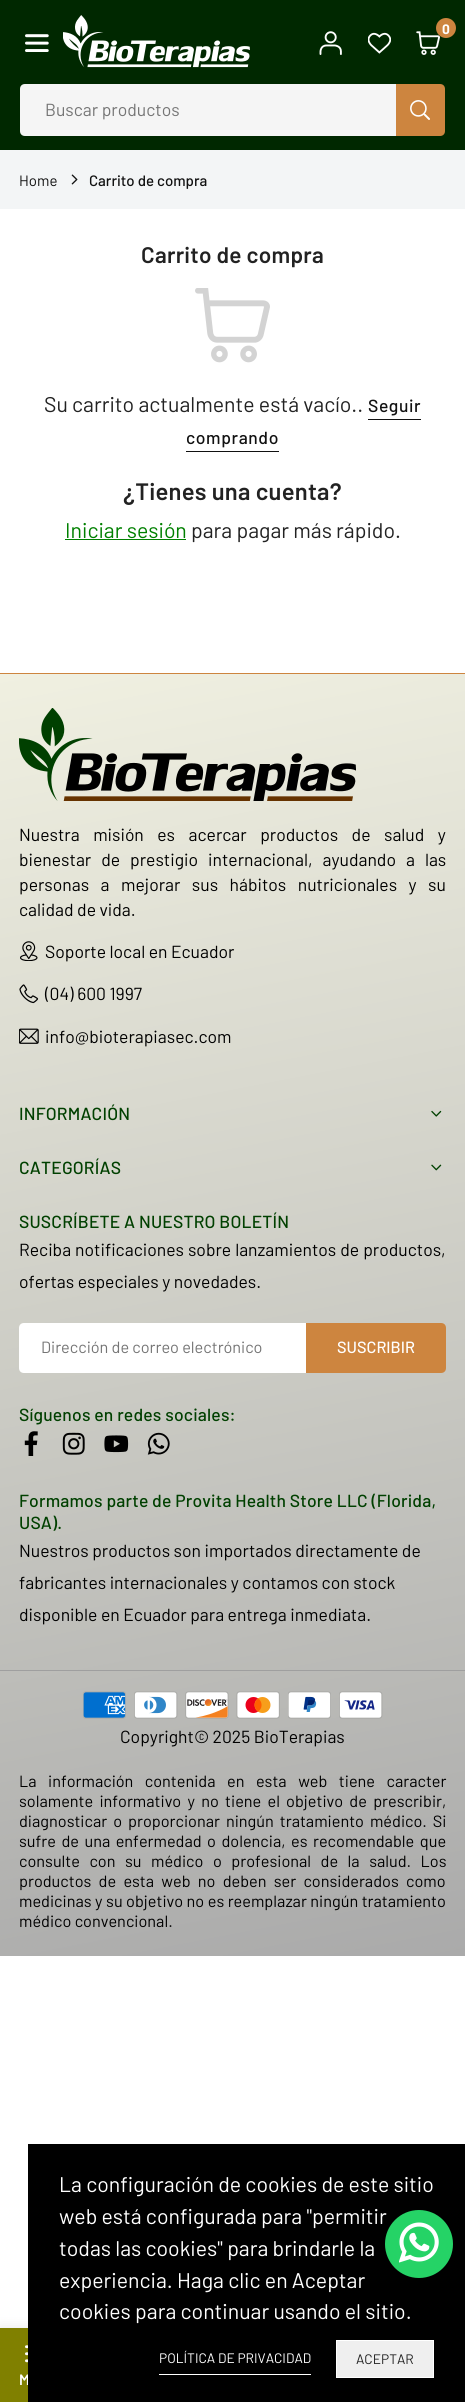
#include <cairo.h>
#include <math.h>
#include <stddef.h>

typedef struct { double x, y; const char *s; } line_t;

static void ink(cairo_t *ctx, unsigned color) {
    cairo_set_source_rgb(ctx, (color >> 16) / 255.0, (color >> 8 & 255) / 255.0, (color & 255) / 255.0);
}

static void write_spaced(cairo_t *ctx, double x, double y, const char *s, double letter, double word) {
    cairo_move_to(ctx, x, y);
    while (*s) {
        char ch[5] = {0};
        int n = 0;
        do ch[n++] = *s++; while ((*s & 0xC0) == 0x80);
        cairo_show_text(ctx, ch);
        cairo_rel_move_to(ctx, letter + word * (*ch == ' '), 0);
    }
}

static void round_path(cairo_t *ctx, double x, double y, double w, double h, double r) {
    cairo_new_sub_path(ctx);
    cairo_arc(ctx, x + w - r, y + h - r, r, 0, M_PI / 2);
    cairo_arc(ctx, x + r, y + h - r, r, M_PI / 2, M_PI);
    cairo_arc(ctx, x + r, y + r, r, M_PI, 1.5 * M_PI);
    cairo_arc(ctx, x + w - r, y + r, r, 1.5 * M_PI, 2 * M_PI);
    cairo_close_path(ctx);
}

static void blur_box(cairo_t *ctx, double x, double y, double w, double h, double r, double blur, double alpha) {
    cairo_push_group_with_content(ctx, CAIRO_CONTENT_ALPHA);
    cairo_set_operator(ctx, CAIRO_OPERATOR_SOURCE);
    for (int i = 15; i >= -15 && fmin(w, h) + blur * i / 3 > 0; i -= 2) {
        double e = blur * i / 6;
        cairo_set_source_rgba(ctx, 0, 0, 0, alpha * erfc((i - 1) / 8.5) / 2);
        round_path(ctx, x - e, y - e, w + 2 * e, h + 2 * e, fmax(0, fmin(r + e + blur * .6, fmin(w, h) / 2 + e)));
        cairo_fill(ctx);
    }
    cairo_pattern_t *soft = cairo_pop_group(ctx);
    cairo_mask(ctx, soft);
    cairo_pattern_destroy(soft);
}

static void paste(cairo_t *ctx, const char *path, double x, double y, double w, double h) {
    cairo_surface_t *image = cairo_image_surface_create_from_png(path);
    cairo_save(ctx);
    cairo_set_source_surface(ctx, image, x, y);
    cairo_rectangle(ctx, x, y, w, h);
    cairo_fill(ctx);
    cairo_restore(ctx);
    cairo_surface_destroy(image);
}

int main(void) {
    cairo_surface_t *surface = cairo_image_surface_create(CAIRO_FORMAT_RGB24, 465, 2402);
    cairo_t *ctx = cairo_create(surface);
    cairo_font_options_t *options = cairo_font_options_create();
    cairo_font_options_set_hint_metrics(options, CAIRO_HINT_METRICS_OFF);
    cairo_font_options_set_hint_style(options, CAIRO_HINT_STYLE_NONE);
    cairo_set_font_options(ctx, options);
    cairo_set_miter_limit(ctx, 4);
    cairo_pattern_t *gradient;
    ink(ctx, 0xFFFFFF);
    cairo_paint(ctx);
    ink(ctx, 0x002800);
    cairo_rectangle(ctx, 0, 0, 465, 150);
    cairo_fill(ctx);
    paste(ctx, "media/1.png", 63, 15, 187, 53);
    paste(ctx, "media/2.png", 416, 31, 24, 24);
    ink(ctx, 0xCD853F);
    cairo_arc(ctx, 446, 28, 10, 0, 2 * M_PI);
    cairo_fill(ctx);
    cairo_select_font_face(ctx, "Barlow", CAIRO_FONT_SLANT_NORMAL, CAIRO_FONT_WEIGHT_BOLD);
    cairo_set_font_size(ctx, 13.75);
    ink(ctx, 0xFFFFFF);
    cairo_move_to(ctx, 442, 34);
    cairo_show_text(ctx, "0");
    paste(ctx, "media/3.png", 319, 31, 23, 24);
    paste(ctx, "media/4.png", 368, 32, 23, 22);
    paste(ctx, "media/5.png", 25, 34, 24, 18);
    ink(ctx, 0xF5F5F5);
    cairo_new_path(ctx);
    cairo_move_to(ctx, 25, 84);
    cairo_line_to(ctx, 396, 84);
    cairo_line_to(ctx, 396, 136);
    cairo_line_to(ctx, 25, 136);
    cairo_curve_to(ctx, 22, 136, 20, 134, 20, 131);
    cairo_line_to(ctx, 20, 89);
    cairo_curve_to(ctx, 20, 86, 22, 84, 25, 84);
    cairo_close_path(ctx);
    cairo_fill(ctx);
    cairo_select_font_face(ctx, "Barlow", CAIRO_FONT_SLANT_NORMAL, CAIRO_FONT_WEIGHT_NORMAL);
    cairo_set_font_size(ctx, 17.5);
    ink(ctx, 0x757575);
    cairo_move_to(ctx, 45, 116);
    cairo_show_text(ctx, "Buscar productos");
    ink(ctx, 0xCD853F);
    cairo_new_path(ctx);
    cairo_move_to(ctx, 396, 84);
    cairo_line_to(ctx, 440, 84);
    cairo_curve_to(ctx, 443, 84, 445, 86, 445, 89);
    cairo_line_to(ctx, 445, 131);
    cairo_curve_to(ctx, 445, 134, 443, 136, 440, 136);
    cairo_line_to(ctx, 396, 136);
    cairo_close_path(ctx);
    cairo_fill(ctx);
    paste(ctx, "media/6.png", 410, 100, 20, 20);
    ink(ctx, 0xF3F5F6);
    cairo_rectangle(ctx, 0, 150, 465, 59);
    cairo_fill(ctx);
    cairo_set_font_size(ctx, 15);
    ink(ctx, 0x111111);
    cairo_move_to(ctx, 19, 186);
    cairo_show_text(ctx, "Home");
    paste(ctx, "media/7.png", 71, 174, 7, 11);
    cairo_select_font_face(ctx, "Barlow Medium", CAIRO_FONT_SLANT_NORMAL, CAIRO_FONT_WEIGHT_NORMAL);
    cairo_move_to(ctx, 89, 186);
    cairo_show_text(ctx, "Carrito de compra");
    cairo_select_font_face(ctx, "Barlow SemiBold", CAIRO_FONT_SLANT_NORMAL, CAIRO_FONT_WEIGHT_NORMAL);
    cairo_set_font_size(ctx, 22.5);
    ink(ctx, 0x222222);
    write_spaced(ctx, 141, 263, "Carrito de compra", 0.25, 0);
    paste(ctx, "media/8.png", 195, 288, 75, 75);
    cairo_select_font_face(ctx, "Barlow", CAIRO_FONT_SLANT_NORMAL, CAIRO_FONT_WEIGHT_NORMAL);
    cairo_set_font_size(ctx, 21.25);
    cairo_move_to(ctx, 44, 412);
    cairo_show_text(ctx, "Su carrito actualmente está vacío..");
    cairo_select_font_face(ctx, "Barlow Medium", CAIRO_FONT_SLANT_NORMAL, CAIRO_FONT_WEIGHT_NORMAL);
    cairo_set_font_size(ctx, 17.5);
    ink(ctx, 0x111111);
    write_spaced(ctx, 368, 412, "Seguir", 0.6, 0);
    cairo_rectangle(ctx, 368, 419, 53, 1);
    cairo_fill(ctx);
    write_spaced(ctx, 186, 444, "comprando", 0.6, 0);
    cairo_rectangle(ctx, 186, 451, 93, 1);
    cairo_fill(ctx);
    cairo_select_font_face(ctx, "Barlow SemiBold", CAIRO_FONT_SLANT_NORMAL, CAIRO_FONT_WEIGHT_NORMAL);
    cairo_set_font_size(ctx, 23.75);
    ink(ctx, 0x222222);
    write_spaced(ctx, 123, 500, "¿Tienes una cuenta?", 0.25, 0);
    cairo_select_font_face(ctx, "Barlow", CAIRO_FONT_SLANT_NORMAL, CAIRO_FONT_WEIGHT_NORMAL);
    cairo_set_font_size(ctx, 21.25);
    ink(ctx, 0x008000);
    cairo_move_to(ctx, 65, 538);
    cairo_show_text(ctx, "Iniciar sesión");
    cairo_rectangle(ctx, 65, 539, 121, 1);
    cairo_fill(ctx);
    ink(ctx, 0x222222);
    cairo_move_to(ctx, 191, 538);
    cairo_show_text(ctx, "para pagar más rápido.");
    gradient = cairo_pattern_create_linear(104, 654, 361, 1976);
    cairo_pattern_add_color_stop_rgba(gradient, 0, 0.941, 0.941, 0.882, 1);
    cairo_pattern_add_color_stop_rgba(gradient, 1, 0.667, 0.667, 0.667, 1);
    cairo_set_source(ctx, gradient);
    cairo_pattern_destroy(gradient);
    cairo_rectangle(ctx, 0, 674, 465, 1282);
    cairo_fill(ctx);
    ink(ctx, 0xCD853F);
    cairo_rectangle(ctx, 0, 673, 465, 1);
    cairo_fill(ctx);
    paste(ctx, "media/9.png", 19, 708, 337, 93);
    cairo_set_font_size(ctx, 17.5);
    ink(ctx, 0x000000);
    write_spaced(ctx, 19, 841, "Nuestra misión es acercar productos de salud y", 0, 10);
    write_spaced(ctx, 19, 866, "bienestar de prestigio internacional, ayudando a las", 0, 6.5);
    write_spaced(ctx, 19, 891, "personas a mejorar sus hábitos nutricionales y su", 0, 8);
    cairo_move_to(ctx, 19, 916);
    cairo_show_text(ctx, "calidad de vida.");
    paste(ctx, "media/10.png", 20, 941, 18, 20);
    cairo_move_to(ctx, 45, 958);
    cairo_show_text(ctx, "Soporte local en Ecuador");
    paste(ctx, "media/11.png", 19, 984, 20, 20);
    cairo_move_to(ctx, 45, 1000);
    cairo_show_text(ctx, "(04) 600 1997");
    paste(ctx, "media/12.png", 19, 1028, 20, 16);
    cairo_move_to(ctx, 45, 1043);
    cairo_show_text(ctx, "info@bioterapiasec.com");
    cairo_select_font_face(ctx, "Barlow Medium", CAIRO_FONT_SLANT_NORMAL, CAIRO_FONT_WEIGHT_NORMAL);
    ink(ctx, 0x004000);
    write_spaced(ctx, 19, 1120, "INFORMACIÓN", 0.18, 0);
    paste(ctx, "media/13.png", 431, 1110, 11, 7);
    write_spaced(ctx, 19, 1174, "CATEGORÍAS", 0.18, 0);
    paste(ctx, "media/14.png", 431, 1164, 11, 7);
    write_spaced(ctx, 19, 1228, "SUSCRÍBETE A NUESTRO BOLETÍN", 0.18, 0);
    cairo_select_font_face(ctx, "Barlow", CAIRO_FONT_SLANT_NORMAL, CAIRO_FONT_WEIGHT_NORMAL);
    ink(ctx, 0x000000);
    write_spaced(ctx, 19, 1256, "Reciba notificaciones sobre lanzamientos de productos,", 0, 0.5);
    cairo_move_to(ctx, 19, 1288);
    cairo_show_text(ctx, "ofertas especiales y novedades.");
    ink(ctx, 0xFFFFFF);
    cairo_new_path(ctx);
    cairo_move_to(ctx, 24, 1323);
    cairo_line_to(ctx, 306, 1323);
    cairo_line_to(ctx, 306, 1373);
    cairo_line_to(ctx, 24, 1373);
    cairo_curve_to(ctx, 21, 1373, 19, 1371, 19, 1368);
    cairo_line_to(ctx, 19, 1328);
    cairo_curve_to(ctx, 19, 1325, 21, 1323, 24, 1323);
    cairo_close_path(ctx);
    cairo_fill(ctx);
    cairo_set_font_size(ctx, 16.25);
    ink(ctx, 0x757575);
    cairo_move_to(ctx, 41, 1353);
    cairo_show_text(ctx, "Dirección de correo electrónico");
    ink(ctx, 0xCD853F);
    cairo_new_path(ctx);
    cairo_move_to(ctx, 306, 1323);
    cairo_line_to(ctx, 441, 1323);
    cairo_curve_to(ctx, 444, 1323, 446, 1325, 446, 1328);
    cairo_line_to(ctx, 446, 1368);
    cairo_curve_to(ctx, 446, 1371, 444, 1373, 441, 1373);
    cairo_line_to(ctx, 306, 1373);
    cairo_close_path(ctx);
    cairo_fill(ctx);
    cairo_select_font_face(ctx, "Barlow Medium", CAIRO_FONT_SLANT_NORMAL, CAIRO_FONT_WEIGHT_NORMAL);
    ink(ctx, 0xFFFFFF);
    cairo_move_to(ctx, 337, 1353);
    cairo_show_text(ctx, "SUSCRIBIR");
    cairo_set_font_size(ctx, 17.5);
    ink(ctx, 0x004000);
    write_spaced(ctx, 19, 1421, "Síguenos en redes sociales:", 0.18, 0);
    paste(ctx, "media/15.png", 24, 1431, 14, 25);
    paste(ctx, "media/16.png", 62, 1432, 23, 23);
    paste(ctx, "media/17.png", 104, 1435, 25, 18);
    paste(ctx, "media/18.png", 147, 1432, 23, 23);
    write_spaced(ctx, 19, 1507, "Formamos parte de Provita Health Store LLC (Florida,", 0.18, 0);
    write_spaced(ctx, 19, 1529, "USA).", 0.18, 0);
    cairo_select_font_face(ctx, "Barlow", CAIRO_FONT_SLANT_NORMAL, CAIRO_FONT_WEIGHT_NORMAL);
    ink(ctx, 0x000000);
    {
        static const line_t items[] = {
            {19, 1557, "Nuestros productos son importados directamente de"},
            {19, 1589, "fabricantes internacionales y contamos con stock"},
            {19, 1621, "disponible en Ecuador para entrega inmediata."},
        };
        for (size_t i = 0; i < sizeof items / sizeof *items; i++) {
            cairo_move_to(ctx, items[i].x, items[i].y);
            cairo_show_text(ctx, items[i].s);
        }
    }
    ink(ctx, 0x9F9F9F);
    cairo_rectangle(ctx, 0, 1670, 465, 1);
    cairo_fill(ctx);
    paste(ctx, "media/19.png", 83, 1691, 43, 28);
    paste(ctx, "media/20.png", 134, 1691, 44, 28);
    paste(ctx, "media/21.png", 185, 1691, 44, 28);
    paste(ctx, "media/22.png", 236, 1691, 44, 28);
    paste(ctx, "media/23.png", 288, 1691, 43, 28);
    paste(ctx, "media/24.png", 339, 1691, 44, 28);
    ink(ctx, 0x000000);
    cairo_move_to(ctx, 120, 1743);
    cairo_show_text(ctx, "Copyright© 2025 BioTerapias");
    cairo_set_font_size(ctx, 16.25);
    write_spaced(ctx, 19, 1787, "La información contenida en esta web tiene caracter", 0, 8.25);
    write_spaced(ctx, 19, 1807, "solamente informativo y no tiene el objetivo de prescribir,", 0, 3);
    write_spaced(ctx, 19, 1827, "diagnosticar o proporcionar ningún tratamiento médico. Si", 0, 2.75);
    write_spaced(ctx, 19, 1847, "sufre de una enfermedad o dolencia, es recomendable que", 0, 2.25);
    write_spaced(ctx, 19, 1867, "consulte con su médico o profesional de la salud. Los", 0, 6.25);
    write_spaced(ctx, 19, 1887, "productos de esta web no deben ser considerados como", 0, 4);
    write_spaced(ctx, 19, 1907, "medicinas y su objetivo no es reemplazar ningún tratamiento", 0, 0.25);
    cairo_move_to(ctx, 19, 1927);
    cairo_show_text(ctx, "médico convencional.");
    ink(ctx, 0x000000);
    blur_box(ctx, 0, 2328, 465, 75, 0, 6, 0.1);
    ink(ctx, 0x808000);
    cairo_rectangle(ctx, 0, 2328, 28, 74);
    cairo_fill(ctx);
    cairo_select_font_face(ctx, "Barlow SemiBold", CAIRO_FONT_SLANT_NORMAL, CAIRO_FONT_WEIGHT_NORMAL);
    cairo_set_font_size(ctx, 15);
    ink(ctx, 0xFFFFFF);
    cairo_move_to(ctx, 19, 2385);
    cairo_show_text(ctx, "M");
    ink(ctx, 0x000000);
    cairo_rectangle(ctx, 28, 2144, 437, 258);
    cairo_fill(ctx);
    cairo_select_font_face(ctx, "Barlow", CAIRO_FONT_SLANT_NORMAL, CAIRO_FONT_WEIGHT_NORMAL);
    cairo_set_font_size(ctx, 21.25);
    ink(ctx, 0xFFFFFF);
    {
        static const line_t items[] = {
            {59, 2192, "La configuración de cookies de este sitio"},
            {59, 2224, "web está configurada para \"permitir"},
            {59, 2256, "todas las cookies\" para brindarle la"},
            {59, 2288, "experiencia. Haga clic en Aceptar"},
            {59, 2319, "cookies para continuar usando el sitio."},
        };
        for (size_t i = 0; i < sizeof items / sizeof *items; i++) {
            cairo_move_to(ctx, items[i].x, items[i].y);
            cairo_show_text(ctx, items[i].s);
        }
    }
    cairo_rectangle(ctx, 159, 2374, 152, 1);
    cairo_fill(ctx);
    cairo_set_font_size(ctx, 13.75);
    cairo_move_to(ctx, 159, 2363);
    cairo_show_text(ctx, "POLÍTICA DE PRIVACIDAD");
    ink(ctx, 0xEFEFEF);
    cairo_rectangle(ctx, 336.5, 2340.5, 97, 37);
    cairo_fill_preserve(ctx);
    ink(ctx, 0xFFFFFF);
    cairo_set_line_width(ctx, 1);
    cairo_stroke(ctx);
    ink(ctx, 0x222222);
    cairo_move_to(ctx, 356, 2364);
    cairo_show_text(ctx, "ACEPTAR");
    ink(ctx, 0x25D366);
    cairo_new_path(ctx);
    cairo_arc(ctx, 419, 2244, 34, 0, 2 * M_PI);
    cairo_fill(ctx);
    paste(ctx, "media/25.png", 399, 2222, 40, 41);
    paste(ctx, "media/26.png", 25, 2345, 3, 18);
    cairo_surface_write_to_png(surface, "image.png");
    cairo_font_options_destroy(options);
    cairo_destroy(ctx);
    cairo_surface_destroy(surface);
    return 0;
}
